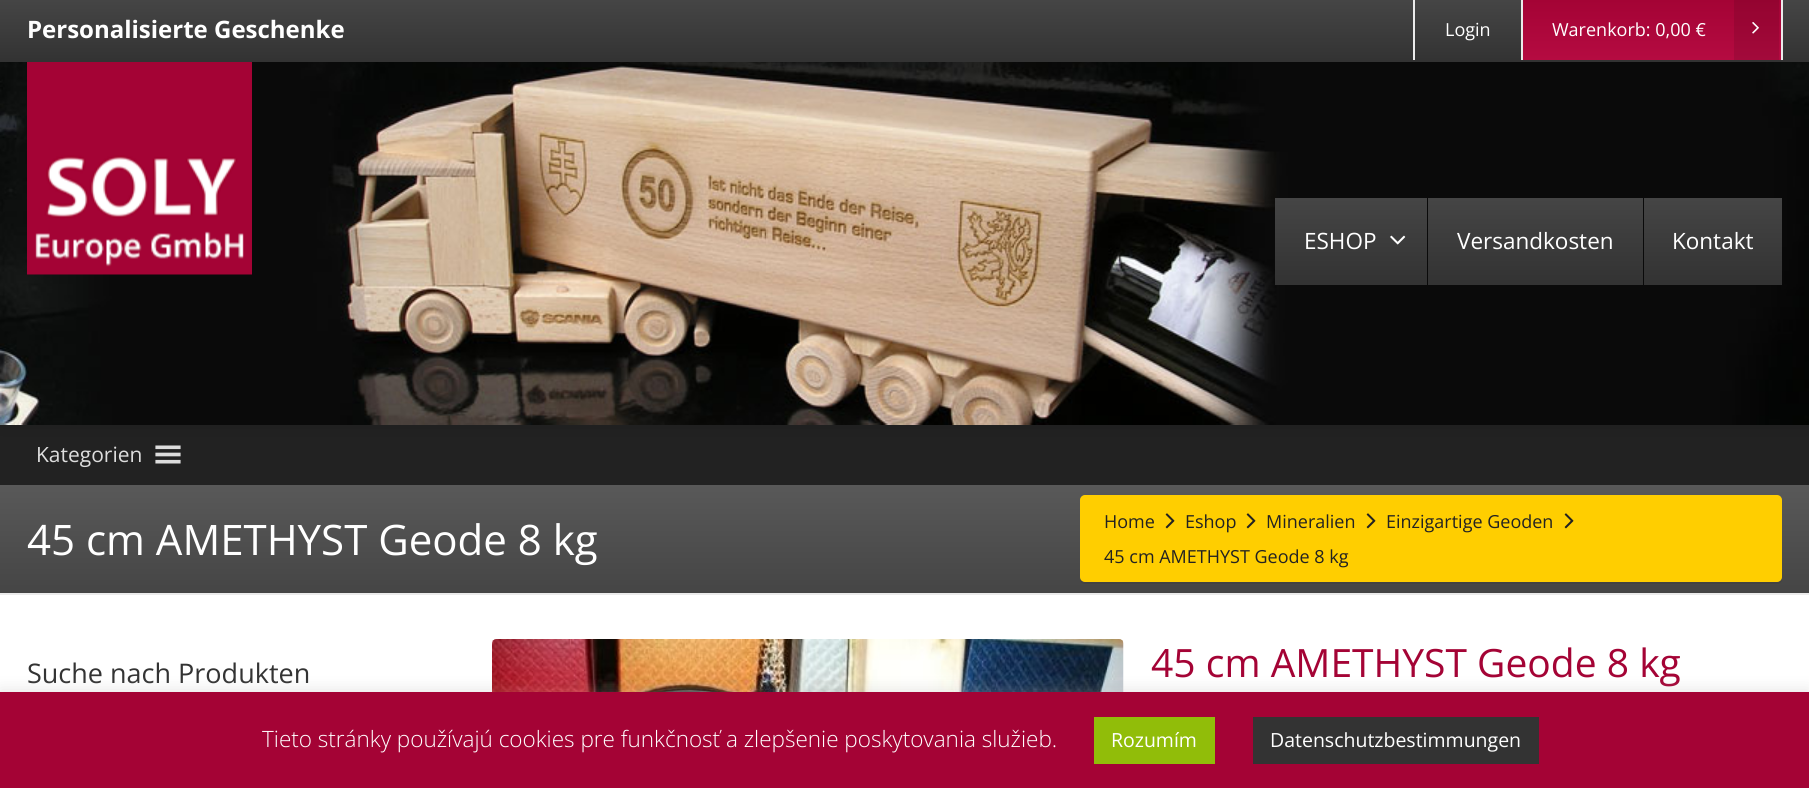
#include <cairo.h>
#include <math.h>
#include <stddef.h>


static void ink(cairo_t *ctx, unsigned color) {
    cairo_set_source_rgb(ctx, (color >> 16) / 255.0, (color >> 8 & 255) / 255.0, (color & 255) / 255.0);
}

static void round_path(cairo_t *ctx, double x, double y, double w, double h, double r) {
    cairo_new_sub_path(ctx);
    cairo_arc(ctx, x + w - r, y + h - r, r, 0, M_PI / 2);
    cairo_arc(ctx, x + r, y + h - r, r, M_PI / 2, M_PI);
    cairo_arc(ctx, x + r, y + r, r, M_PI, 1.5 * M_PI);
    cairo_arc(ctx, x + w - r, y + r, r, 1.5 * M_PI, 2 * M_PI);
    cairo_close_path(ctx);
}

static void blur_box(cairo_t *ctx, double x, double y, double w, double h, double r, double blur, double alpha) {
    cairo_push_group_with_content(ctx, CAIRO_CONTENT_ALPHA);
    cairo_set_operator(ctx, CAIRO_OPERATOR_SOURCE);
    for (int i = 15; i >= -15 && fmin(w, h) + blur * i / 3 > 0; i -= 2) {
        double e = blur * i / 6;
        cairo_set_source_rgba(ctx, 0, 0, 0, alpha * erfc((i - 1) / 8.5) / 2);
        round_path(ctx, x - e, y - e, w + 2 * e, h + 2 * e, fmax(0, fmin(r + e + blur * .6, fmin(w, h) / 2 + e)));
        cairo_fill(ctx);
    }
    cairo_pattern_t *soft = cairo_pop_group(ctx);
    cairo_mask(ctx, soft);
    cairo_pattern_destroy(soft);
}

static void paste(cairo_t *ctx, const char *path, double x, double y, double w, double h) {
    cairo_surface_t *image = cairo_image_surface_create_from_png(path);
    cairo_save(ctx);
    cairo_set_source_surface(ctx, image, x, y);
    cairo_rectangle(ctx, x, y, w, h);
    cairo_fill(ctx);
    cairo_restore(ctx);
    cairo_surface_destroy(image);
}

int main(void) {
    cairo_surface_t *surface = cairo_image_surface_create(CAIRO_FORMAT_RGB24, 1809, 788);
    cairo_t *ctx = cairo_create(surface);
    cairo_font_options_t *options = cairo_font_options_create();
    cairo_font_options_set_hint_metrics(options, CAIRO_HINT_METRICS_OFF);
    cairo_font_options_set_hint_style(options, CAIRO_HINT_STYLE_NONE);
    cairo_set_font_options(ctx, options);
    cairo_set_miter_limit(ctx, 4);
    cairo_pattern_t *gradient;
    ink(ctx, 0xFFFFFF);
    cairo_paint(ctx);
    ink(ctx, 0x222222);
    cairo_rectangle(ctx, 0, 425, 1809, 60);
    cairo_fill(ctx);
    paste(ctx, "media/5.png", 155, 445, 26, 19);
    ink(ctx, 0x000000);
    blur_box(ctx, 0, 65, 1809, 363, 0, 7.5, 0.1);
    ink(ctx, 0x333333);
    cairo_rectangle(ctx, 0, 60, 1809, 2);
    cairo_fill(ctx);
    gradient = cairo_pattern_create_linear(905, 0, 905, 60);
    cairo_pattern_add_color_stop_rgba(gradient, 0, 0.271, 0.271, 0.271, 1);
    cairo_pattern_add_color_stop_rgba(gradient, 1, 0.2, 0.2, 0.2, 1);
    cairo_set_source(ctx, gradient);
    cairo_pattern_destroy(gradient);
    cairo_rectangle(ctx, 0, 0, 1809, 60);
    cairo_fill(ctx);
    cairo_select_font_face(ctx, "Open Sans", CAIRO_FONT_SLANT_NORMAL, CAIRO_FONT_WEIGHT_BOLD);
    cairo_set_font_size(ctx, 24);
    ink(ctx, 0xFFFFFF);
    cairo_move_to(ctx, 27, 38);
    cairo_show_text(ctx, "Personalisierte Geschenke");
    ink(ctx, 0xEBEBEB);
    cairo_rectangle(ctx, 1521, 0, 2, 60);
    cairo_fill(ctx);
    cairo_rectangle(ctx, 1413, 0, 2, 60);
    cairo_fill(ctx);
    cairo_select_font_face(ctx, "Open Sans", CAIRO_FONT_SLANT_NORMAL, CAIRO_FONT_WEIGHT_NORMAL);
    cairo_set_font_size(ctx, 18);
    ink(ctx, 0xFFFFFF);
    cairo_move_to(ctx, 1445, 36);
    cairo_show_text(ctx, "Login");
    ink(ctx, 0xEBEBEB);
    cairo_rectangle(ctx, 1781, 0, 2, 60);
    cairo_fill(ctx);
    gradient = cairo_pattern_create_linear(1652, 0, 1652, 60);
    cairo_pattern_add_color_stop_rgba(gradient, 0, 0.643, 0.012, 0.208, 1);
    cairo_pattern_add_color_stop_rgba(gradient, 1, 0.71, 0.043, 0.255, 1);
    cairo_set_source(ctx, gradient);
    cairo_pattern_destroy(gradient);
    cairo_rectangle(ctx, 1523, 0, 258, 60);
    cairo_fill(ctx);
    ink(ctx, 0xFFFFFF);
    cairo_move_to(ctx, 1552, 36);
    cairo_show_text(ctx, "Warenkorb: 0,00 €");
    cairo_set_source_rgba(ctx, 0, 0, 0, 0.1);
    cairo_rectangle(ctx, 1734, 0, 45, 60);
    cairo_fill(ctx);
    paste(ctx, "media/1.png", 1752, 22, 7, 12);
    paste(ctx, "media/2.png", 0, 62, 1809, 363);
    paste(ctx, "media/3.png", 27, 62, 225, 213);
    ink(ctx, 0x333333);
    cairo_rectangle(ctx, 1275, 282, 152, 3);
    cairo_fill(ctx);
    gradient = cairo_pattern_create_linear(1351, 198, 1351, 282);
    cairo_pattern_add_color_stop_rgba(gradient, 0, 0.271, 0.271, 0.271, 1);
    cairo_pattern_add_color_stop_rgba(gradient, 1, 0.2, 0.2, 0.2, 1);
    cairo_set_source(ctx, gradient);
    cairo_pattern_destroy(gradient);
    cairo_rectangle(ctx, 1275, 198, 152, 84);
    cairo_fill(ctx);
    cairo_set_font_size(ctx, 22.5);
    ink(ctx, 0xFFFFFF);
    cairo_move_to(ctx, 1304, 249);
    cairo_show_text(ctx, "ESHOP");
    paste(ctx, "media/4.png", 1390, 235, 16, 10);
    ink(ctx, 0x333333);
    cairo_rectangle(ctx, 1428, 282, 215, 3);
    cairo_fill(ctx);
    gradient = cairo_pattern_create_linear(1535, 198, 1535, 282);
    cairo_pattern_add_color_stop_rgba(gradient, 0, 0.271, 0.271, 0.271, 1);
    cairo_pattern_add_color_stop_rgba(gradient, 1, 0.2, 0.2, 0.2, 1);
    cairo_set_source(ctx, gradient);
    cairo_pattern_destroy(gradient);
    cairo_rectangle(ctx, 1428, 198, 215, 84);
    cairo_fill(ctx);
    ink(ctx, 0xFFFFFF);
    cairo_move_to(ctx, 1457, 249);
    cairo_show_text(ctx, "Versandkosten");
    ink(ctx, 0x333333);
    cairo_rectangle(ctx, 1644, 282, 138, 3);
    cairo_fill(ctx);
    gradient = cairo_pattern_create_linear(1713, 198, 1713, 282);
    cairo_pattern_add_color_stop_rgba(gradient, 0, 0.271, 0.271, 0.271, 1);
    cairo_pattern_add_color_stop_rgba(gradient, 1, 0.2, 0.2, 0.2, 1);
    cairo_set_source(ctx, gradient);
    cairo_pattern_destroy(gradient);
    cairo_rectangle(ctx, 1644, 198, 138, 84);
    cairo_fill(ctx);
    ink(ctx, 0xFFFFFF);
    cairo_move_to(ctx, 1672, 249);
    cairo_show_text(ctx, "Kontakt");
    cairo_set_font_size(ctx, 21);
    ink(ctx, 0xDDDDDD);
    cairo_move_to(ctx, 36, 462);
    cairo_show_text(ctx, "Kategorien");
    gradient = cairo_pattern_create_linear(905, 484, 905, 593);
    cairo_pattern_add_color_stop_rgba(gradient, 0, 0.349, 0.349, 0.349, 1);
    cairo_pattern_add_color_stop_rgba(gradient, 1, 0.271, 0.271, 0.271, 1);
    cairo_set_source(ctx, gradient);
    cairo_pattern_destroy(gradient);
    cairo_rectangle(ctx, 0, 485, 1809, 108);
    cairo_fill(ctx);
    ink(ctx, 0xEBEBEB);
    cairo_rectangle(ctx, 0, 593, 1809, 2);
    cairo_fill(ctx);
    cairo_set_font_size(ctx, 42);
    ink(ctx, 0xFFFFFF);
    cairo_move_to(ctx, 27, 555);
    cairo_show_text(ctx, "45 cm AMETHYST Geode 8 kg");
    ink(ctx, 0x424242);
    cairo_new_path(ctx);
    cairo_move_to(ctx, 1080, 578);
    cairo_line_to(ctx, 1080, 579);
    cairo_curve_to(ctx, 1080, 582, 1082, 584, 1085, 584);
    cairo_line_to(ctx, 1777, 584);
    cairo_curve_to(ctx, 1780, 584, 1782, 582, 1782, 579);
    cairo_line_to(ctx, 1782, 578);
    cairo_curve_to(ctx, 1782, 580, 1780, 582, 1778, 582);
    cairo_line_to(ctx, 1084, 582);
    cairo_curve_to(ctx, 1082, 582, 1080, 580, 1080, 578);
    cairo_close_path(ctx);
    cairo_fill(ctx);
    ink(ctx, 0xFFCE00);
    round_path(ctx, 1081, 496, 700, 85, 4);
    cairo_fill_preserve(ctx);
    cairo_stroke(ctx);
    cairo_set_font_size(ctx, 18);
    ink(ctx, 0x222222);
    cairo_move_to(ctx, 1104, 528);
    cairo_show_text(ctx, "Home");
    paste(ctx, "media/6.png", 1165, 513, 10, 16);
    cairo_move_to(ctx, 1185, 528);
    cairo_show_text(ctx, "Eshop");
    paste(ctx, "media/6.png", 1246, 513, 10, 16);
    cairo_move_to(ctx, 1266, 528);
    cairo_show_text(ctx, "Mineralien");
    paste(ctx, "media/6.png", 1366, 513, 10, 16);
    cairo_move_to(ctx, 1386, 528);
    cairo_show_text(ctx, "Einzigartige Geoden");
    paste(ctx, "media/6.png", 1564, 513, 10, 16);
    cairo_move_to(ctx, 1104, 563);
    cairo_show_text(ctx, "45 cm AMETHYST Geode 8 kg");
    cairo_set_font_size(ctx, 27);
    ink(ctx, 0x333333);
    cairo_move_to(ctx, 27, 683);
    cairo_show_text(ctx, "Suche nach Produkten");
    paste(ctx, "media/7.png", 492, 639, 632, 53);
    cairo_set_font_size(ctx, 39);
    ink(ctx, 0xA40335);
    cairo_move_to(ctx, 1151, 677);
    cairo_show_text(ctx, "45 cm AMETHYST Geode 8 kg");
    ink(ctx, 0xACABAB);
    blur_box(ctx, 0, 690, 1809, 98, 0, 7.5, 0.3);
    ink(ctx, 0xA40335);
    cairo_rectangle(ctx, 0, 692, 1809, 96);
    cairo_fill(ctx);
    cairo_select_font_face(ctx, "Open Sans Light", CAIRO_FONT_SLANT_NORMAL, CAIRO_FONT_WEIGHT_NORMAL);
    cairo_set_font_size(ctx, 22.5);
    ink(ctx, 0xFFFFFF);
    cairo_move_to(ctx, 262, 747);
    cairo_show_text(ctx, "Tieto stránky používajú cookies pre funkčnosť a zlepšenie poskytovania služieb.");
    ink(ctx, 0x91BD09);
    cairo_rectangle(ctx, 1094, 717, 121, 47);
    cairo_fill(ctx);
    cairo_select_font_face(ctx, "Open Sans", CAIRO_FONT_SLANT_NORMAL, CAIRO_FONT_WEIGHT_NORMAL);
    cairo_set_font_size(ctx, 19.5);
    ink(ctx, 0xFFFFFF);
    cairo_move_to(ctx, 1111, 747);
    cairo_show_text(ctx, "Rozumím");
    ink(ctx, 0x333333);
    cairo_rectangle(ctx, 1253, 717, 286, 47);
    cairo_fill(ctx);
    ink(ctx, 0xFFFFFF);
    cairo_move_to(ctx, 1270, 747);
    cairo_show_text(ctx, "Datenschutzbestimmungen");
    cairo_surface_write_to_png(surface, "image.png");
    cairo_font_options_destroy(options);
    cairo_destroy(ctx);
    cairo_surface_destroy(surface);
    return 0;
}
